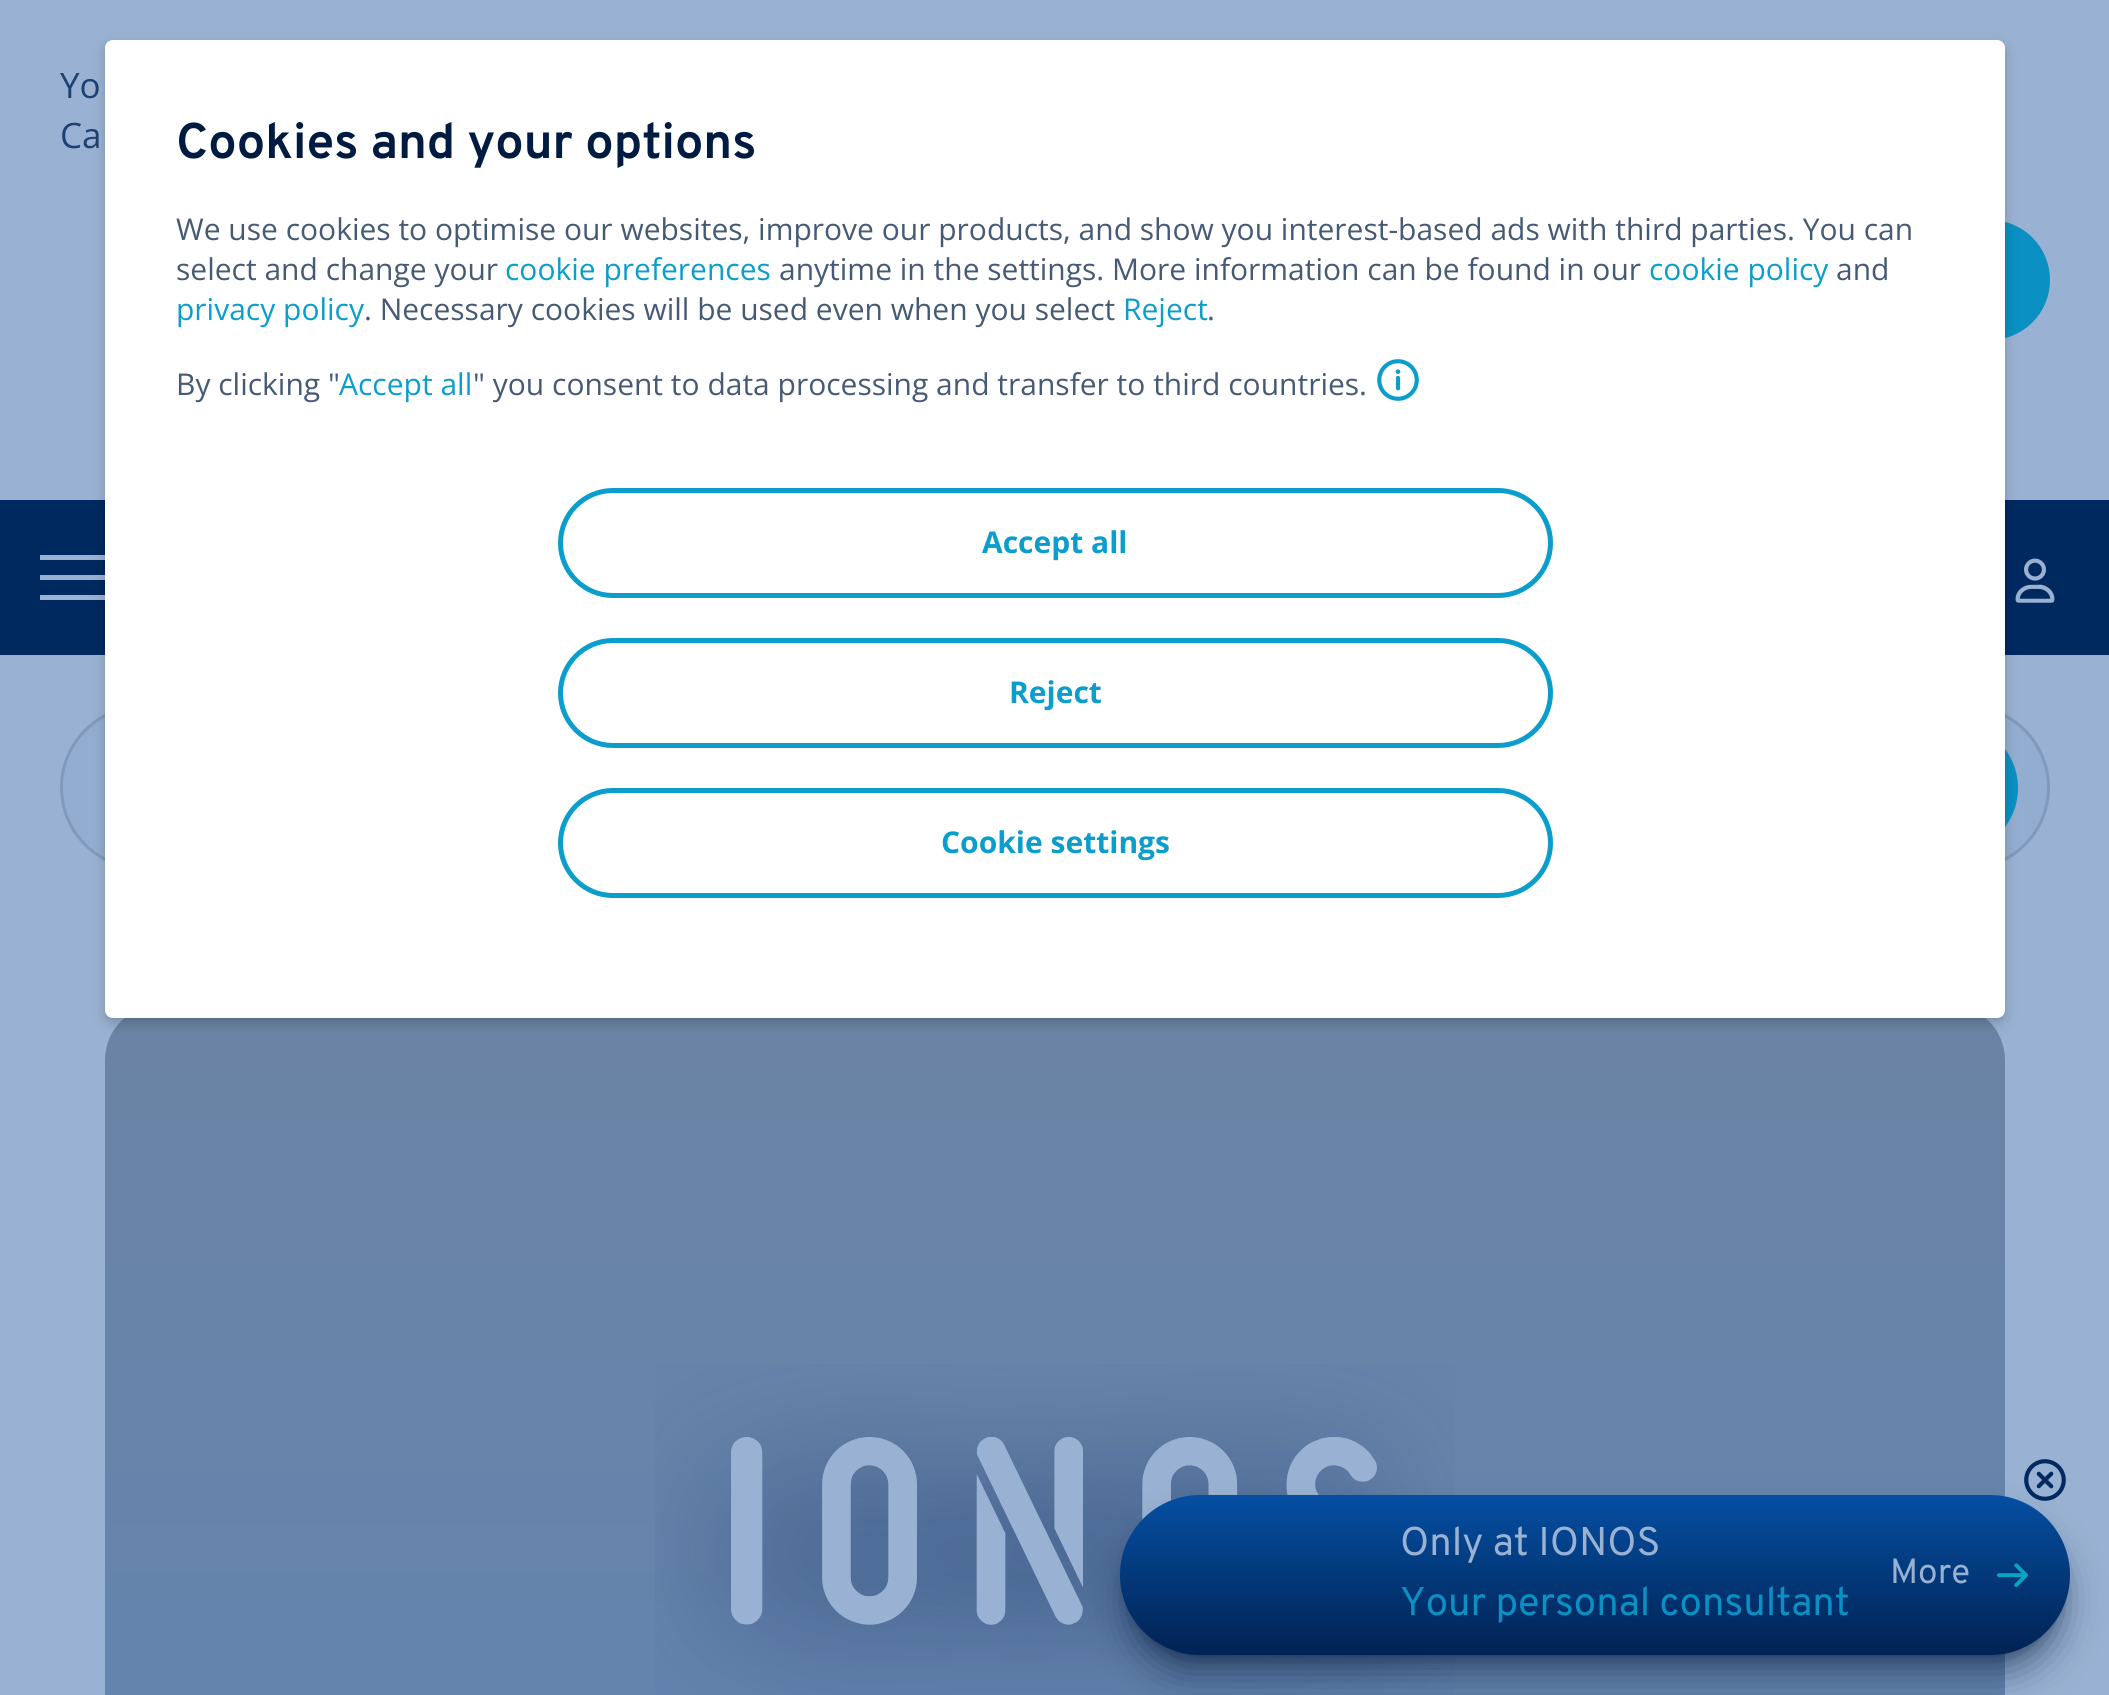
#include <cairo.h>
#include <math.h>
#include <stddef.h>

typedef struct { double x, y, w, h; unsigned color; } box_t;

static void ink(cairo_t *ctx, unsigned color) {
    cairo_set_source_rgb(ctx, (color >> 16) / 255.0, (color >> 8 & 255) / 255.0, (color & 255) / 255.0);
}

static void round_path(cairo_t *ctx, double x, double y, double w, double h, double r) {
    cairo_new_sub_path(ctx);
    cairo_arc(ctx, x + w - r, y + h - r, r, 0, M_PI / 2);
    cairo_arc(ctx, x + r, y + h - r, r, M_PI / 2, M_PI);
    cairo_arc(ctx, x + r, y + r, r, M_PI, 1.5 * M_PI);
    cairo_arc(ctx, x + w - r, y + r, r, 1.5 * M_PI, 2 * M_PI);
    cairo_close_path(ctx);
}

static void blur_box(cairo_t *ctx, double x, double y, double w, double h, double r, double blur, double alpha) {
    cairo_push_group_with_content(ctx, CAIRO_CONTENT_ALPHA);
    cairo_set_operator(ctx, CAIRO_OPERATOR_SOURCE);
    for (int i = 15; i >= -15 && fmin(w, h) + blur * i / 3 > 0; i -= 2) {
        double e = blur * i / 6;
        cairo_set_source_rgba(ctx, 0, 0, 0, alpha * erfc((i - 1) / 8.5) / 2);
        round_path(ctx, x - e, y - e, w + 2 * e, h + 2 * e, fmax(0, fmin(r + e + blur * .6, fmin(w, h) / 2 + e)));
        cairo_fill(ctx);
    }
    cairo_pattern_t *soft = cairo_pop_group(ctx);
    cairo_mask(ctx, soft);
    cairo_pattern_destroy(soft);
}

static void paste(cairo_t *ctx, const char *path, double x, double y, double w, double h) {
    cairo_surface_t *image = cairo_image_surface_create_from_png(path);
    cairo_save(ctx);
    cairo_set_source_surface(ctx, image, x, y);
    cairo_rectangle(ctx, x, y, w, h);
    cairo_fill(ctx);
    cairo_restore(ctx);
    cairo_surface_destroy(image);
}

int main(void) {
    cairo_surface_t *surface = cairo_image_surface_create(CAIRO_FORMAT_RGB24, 2109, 1695);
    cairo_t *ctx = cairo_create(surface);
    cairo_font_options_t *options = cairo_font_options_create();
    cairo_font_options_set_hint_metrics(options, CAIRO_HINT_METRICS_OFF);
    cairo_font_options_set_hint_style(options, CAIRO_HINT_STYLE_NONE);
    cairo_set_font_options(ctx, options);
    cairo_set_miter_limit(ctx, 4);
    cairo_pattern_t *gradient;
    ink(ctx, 0x99B1D2);
    cairo_paint(ctx);
    cairo_select_font_face(ctx, "Open Sans", CAIRO_FONT_SLANT_NORMAL, CAIRO_FONT_WEIGHT_NORMAL);
    cairo_set_font_size(ctx, 35);
    ink(ctx, 0x1C4173);
    cairo_move_to(ctx, 60, 98);
    cairo_show_text(ctx, "Yo");
    cairo_move_to(ctx, 60, 148);
    cairo_show_text(ctx, "Ca");
    ink(ctx, 0x0A90C3);
    round_path(ctx, 1595.5, 222.5, 452, 115, 57.5);
    cairo_fill_preserve(ctx);
    cairo_set_line_width(ctx, 5);
    cairo_stroke(ctx);
    {
        static const box_t items[] = {
            {0, 500, 2109, 155, 0x002960},
            {40, 555, 65, 5, 0x99B1D2},
            {40, 575, 65, 5, 0x99B1D2},
            {40, 595, 65, 5, 0x99B1D2},
        };
        for (size_t i = 0; i < sizeof items / sizeof *items; i++) {
            ink(ctx, items[i].color);
            cairo_rectangle(ctx, items[i].x, items[i].y, items[i].w, items[i].h);
            cairo_fill(ctx);
        }
    }
    paste(ctx, "media/1.png", 2015, 558, 40, 45);
    ink(ctx, 0x92ADCF);
    round_path(ctx, 61.5, 706.5, 1987, 162, 81);
    cairo_fill_preserve(ctx);
    ink(ctx, 0x8199BA);
    cairo_set_line_width(ctx, 3);
    cairo_stroke(ctx);
    ink(ctx, 0x0A90C3);
    round_path(ctx, 1710, 723, 308, 130, 65);
    cairo_fill(ctx);
    gradient = cairo_pattern_create_linear(1055, 1005, 1055, 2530);
    cairo_pattern_add_color_stop_rgba(gradient, 0, 0.42, 0.518, 0.647, 1);
    cairo_pattern_add_color_stop_rgba(gradient, 1, 0.361, 0.514, 0.722, 1);
    cairo_set_source(ctx, gradient);
    cairo_pattern_destroy(gradient);
    round_path(ctx, 105, 1005, 1900, 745, 55);
    cairo_fill(ctx);
    paste(ctx, "media/2.png", 655, 1364, 800, 331);
    ink(ctx, 0x001839);
    blur_box(ctx, 1130, 1515, 930, 140, 70, 7.5, 0.5);
    blur_box(ctx, 1128, 1528, 935, 145, 72.5, 19, 0.5);
    gradient = cairo_pattern_create_linear(1595, 1495, 1595, 1655);
    cairo_pattern_add_color_stop_rgba(gradient, 0, 0.02, 0.31, 0.639, 1);
    cairo_pattern_add_color_stop_rgba(gradient, 1, 0.004, 0.133, 0.325, 1);
    cairo_set_source(ctx, gradient);
    cairo_pattern_destroy(gradient);
    round_path(ctx, 1120, 1495, 950, 160, 80);
    cairo_fill(ctx);
    paste(ctx, "media/3.png", 2024, 1459, 42, 42);
    cairo_select_font_face(ctx, "Overpass", CAIRO_FONT_SLANT_NORMAL, CAIRO_FONT_WEIGHT_NORMAL);
    cairo_set_font_size(ctx, 40);
    ink(ctx, 0x99B1D2);
    cairo_move_to(ctx, 1400, 1555);
    cairo_show_text(ctx, "Only at IONOS");
    ink(ctx, 0x0A90C3);
    cairo_move_to(ctx, 1400, 1615);
    cairo_show_text(ctx, "Your personal consultant");
    cairo_set_font_size(ctx, 35);
    ink(ctx, 0x99B1D2);
    cairo_move_to(ctx, 1890, 1583);
    cairo_show_text(ctx, "More");
    paste(ctx, "media/4.png", 1997, 1563, 31, 24);
    ink(ctx, 0x000000);
    blur_box(ctx, 105, 45, 1900, 978, 8, 6, 0.2);
    ink(ctx, 0xFFFFFF);
    round_path(ctx, 105, 40, 1900, 978, 8);
    cairo_fill(ctx);
    cairo_select_font_face(ctx, "Overpass", CAIRO_FONT_SLANT_NORMAL, CAIRO_FONT_WEIGHT_BOLD);
    cairo_set_font_size(ctx, 50);
    ink(ctx, 0x001B41);
    cairo_move_to(ctx, 176, 158);
    cairo_show_text(ctx, "Cookies and your options");
    cairo_select_font_face(ctx, "Open Sans", CAIRO_FONT_SLANT_NORMAL, CAIRO_FONT_WEIGHT_NORMAL);
    cairo_set_font_size(ctx, 30);
    ink(ctx, 0x465A75);
    cairo_move_to(ctx, 176, 240);
    cairo_show_text(ctx, "We use cookies to optimise our websites, improve our products, and show you interest-based ads with third parties. You can");
    cairo_move_to(ctx, 176, 280);
    cairo_show_text(ctx, "select and change your");
    ink(ctx, 0x0B9DCC);
    cairo_move_to(ctx, 505, 280);
    cairo_show_text(ctx, "cookie preferences");
    ink(ctx, 0x465A75);
    cairo_move_to(ctx, 779, 280);
    cairo_show_text(ctx, "anytime in the settings. More information can be found in our");
    ink(ctx, 0x0B9DCC);
    cairo_move_to(ctx, 1649, 280);
    cairo_show_text(ctx, "cookie policy");
    ink(ctx, 0x465A75);
    cairo_move_to(ctx, 1836, 280);
    cairo_show_text(ctx, "and");
    ink(ctx, 0x0B9DCC);
    cairo_move_to(ctx, 176, 320);
    cairo_show_text(ctx, "privacy policy");
    ink(ctx, 0x465A75);
    cairo_move_to(ctx, 364, 320);
    cairo_show_text(ctx, ". Necessary cookies will be used even when you select");
    ink(ctx, 0x0B9DCC);
    cairo_move_to(ctx, 1123, 320);
    cairo_show_text(ctx, "Reject");
    ink(ctx, 0x465A75);
    cairo_move_to(ctx, 1207, 320);
    cairo_show_text(ctx, ".");
    cairo_move_to(ctx, 176, 395);
    cairo_show_text(ctx, "By clicking \"");
    ink(ctx, 0x0B9DCC);
    cairo_move_to(ctx, 339, 395);
    cairo_show_text(ctx, "Accept all");
    ink(ctx, 0x465A75);
    cairo_move_to(ctx, 473, 395);
    cairo_show_text(ctx, "\" you consent to data processing and transfer to third countries.");
    paste(ctx, "media/5.png", 1377, 359, 42, 42);
    round_path(ctx, 560.5, 490.5, 990, 105, 52.5);
    ink(ctx, 0x0B9DCC);
    cairo_set_line_width(ctx, 5);
    cairo_stroke(ctx);
    cairo_select_font_face(ctx, "Open Sans", CAIRO_FONT_SLANT_NORMAL, CAIRO_FONT_WEIGHT_BOLD);
    cairo_move_to(ctx, 982, 553);
    cairo_show_text(ctx, "Accept all");
    round_path(ctx, 560.5, 640.5, 990, 105, 52.5);
    cairo_stroke(ctx);
    cairo_move_to(ctx, 1009, 703);
    cairo_show_text(ctx, "Reject");
    round_path(ctx, 560.5, 790.5, 990, 105, 52.5);
    cairo_stroke(ctx);
    cairo_move_to(ctx, 941, 853);
    cairo_show_text(ctx, "Cookie settings");
    cairo_surface_write_to_png(surface, "image.png");
    cairo_font_options_destroy(options);
    cairo_destroy(ctx);
    cairo_surface_destroy(surface);
    return 0;
}
